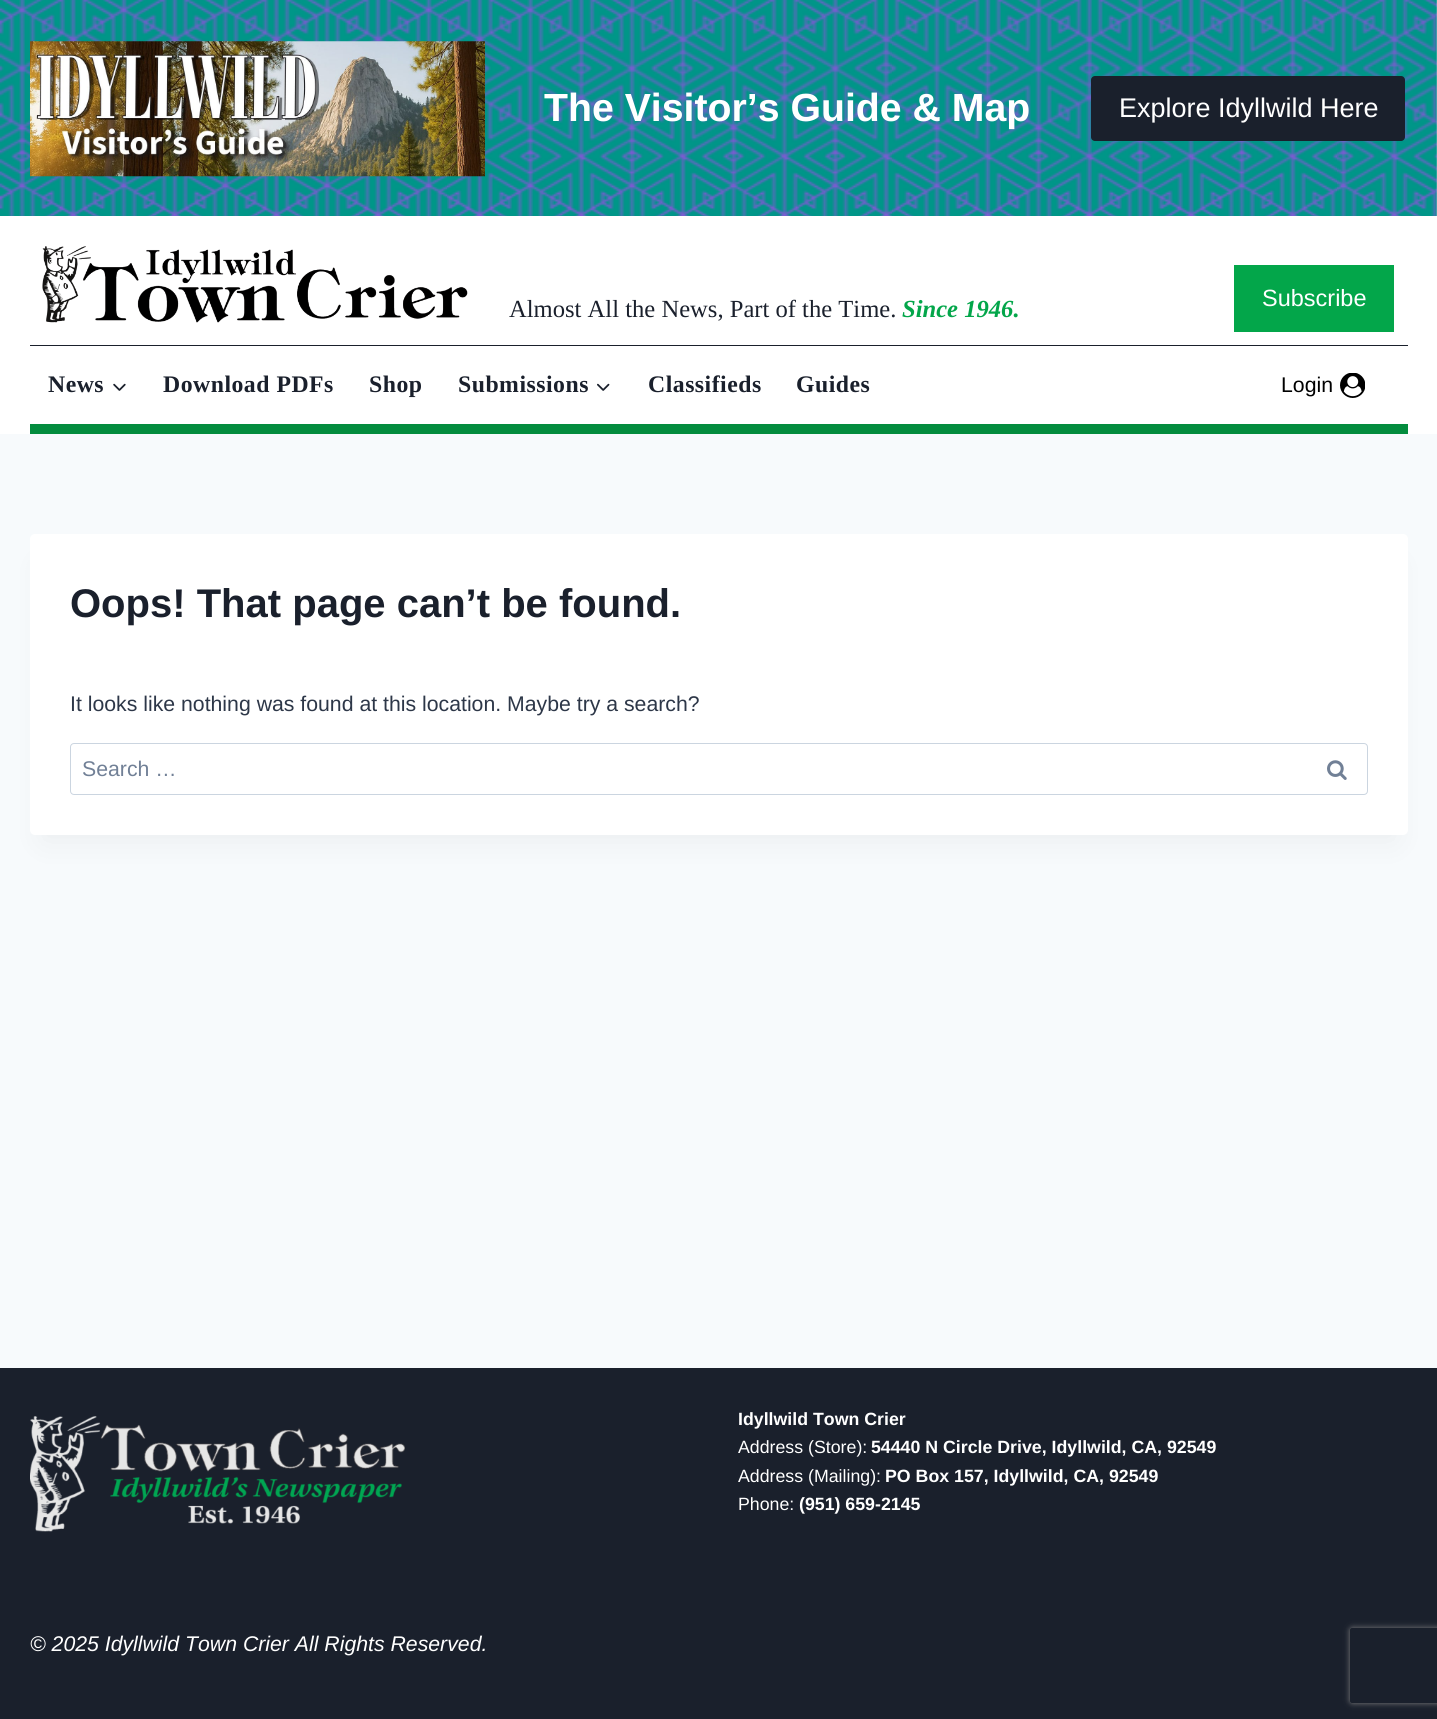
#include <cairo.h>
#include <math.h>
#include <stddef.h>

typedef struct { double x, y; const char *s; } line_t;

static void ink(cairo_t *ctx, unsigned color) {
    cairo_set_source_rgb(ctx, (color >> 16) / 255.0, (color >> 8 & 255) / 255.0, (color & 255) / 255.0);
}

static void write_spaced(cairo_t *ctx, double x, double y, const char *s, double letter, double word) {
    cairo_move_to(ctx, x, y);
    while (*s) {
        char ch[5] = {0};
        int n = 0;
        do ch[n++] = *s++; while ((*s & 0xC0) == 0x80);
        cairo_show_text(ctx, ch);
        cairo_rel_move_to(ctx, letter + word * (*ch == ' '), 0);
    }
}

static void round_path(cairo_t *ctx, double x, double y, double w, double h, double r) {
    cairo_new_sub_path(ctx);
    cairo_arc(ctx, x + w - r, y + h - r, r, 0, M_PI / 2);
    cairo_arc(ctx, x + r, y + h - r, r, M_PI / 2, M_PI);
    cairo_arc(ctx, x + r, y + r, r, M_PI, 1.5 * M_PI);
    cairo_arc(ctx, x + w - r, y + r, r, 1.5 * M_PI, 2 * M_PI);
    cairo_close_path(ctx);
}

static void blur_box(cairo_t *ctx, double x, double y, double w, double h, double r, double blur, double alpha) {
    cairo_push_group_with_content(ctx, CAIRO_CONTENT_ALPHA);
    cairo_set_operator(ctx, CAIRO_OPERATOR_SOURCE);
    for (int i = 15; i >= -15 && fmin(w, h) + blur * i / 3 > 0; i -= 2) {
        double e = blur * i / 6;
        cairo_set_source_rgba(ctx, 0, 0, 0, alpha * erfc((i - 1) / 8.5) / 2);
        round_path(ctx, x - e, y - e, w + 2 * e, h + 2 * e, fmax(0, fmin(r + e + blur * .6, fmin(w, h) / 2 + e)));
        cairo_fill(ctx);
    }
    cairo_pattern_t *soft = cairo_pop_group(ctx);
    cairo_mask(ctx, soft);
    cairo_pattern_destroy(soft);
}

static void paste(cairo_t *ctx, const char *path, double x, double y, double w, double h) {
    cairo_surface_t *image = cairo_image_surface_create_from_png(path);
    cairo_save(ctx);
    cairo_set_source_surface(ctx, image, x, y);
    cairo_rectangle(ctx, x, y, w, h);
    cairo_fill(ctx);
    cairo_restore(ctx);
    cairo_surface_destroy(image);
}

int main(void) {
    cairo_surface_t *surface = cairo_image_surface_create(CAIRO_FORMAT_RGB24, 1437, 1719);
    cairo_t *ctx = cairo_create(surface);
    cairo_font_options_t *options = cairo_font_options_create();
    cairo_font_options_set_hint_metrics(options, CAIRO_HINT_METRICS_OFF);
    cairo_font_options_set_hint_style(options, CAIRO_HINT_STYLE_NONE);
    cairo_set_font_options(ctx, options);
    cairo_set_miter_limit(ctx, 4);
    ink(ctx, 0xF7FAFC);
    cairo_paint(ctx);
    paste(ctx, "media/1.png", 0, 0, 1437, 216);
    paste(ctx, "media/2.png", 30, 41, 455, 136);
    cairo_select_font_face(ctx, "Liberation Sans", CAIRO_FONT_SLANT_NORMAL, CAIRO_FONT_WEIGHT_BOLD);
    cairo_set_font_size(ctx, 39.25);
    ink(ctx, 0xFFFFFF);
    cairo_move_to(ctx, 544, 121);
    cairo_show_text(ctx, "The Visitor’s Guide & Map");
    ink(ctx, 0x1A202C);
    round_path(ctx, 1091, 76, 314, 65, 4);
    cairo_fill(ctx);
    cairo_select_font_face(ctx, "Liberation Sans", CAIRO_FONT_SLANT_NORMAL, CAIRO_FONT_WEIGHT_NORMAL);
    cairo_set_font_size(ctx, 27);
    ink(ctx, 0xFFFFFF);
    cairo_move_to(ctx, 1119, 117);
    cairo_show_text(ctx, "Explore Idyllwild Here");
    cairo_rectangle(ctx, 0, 216, 1437, 218);
    cairo_fill(ctx);
    ink(ctx, 0x1A202C);
    cairo_rectangle(ctx, 30, 345, 1378, 1);
    cairo_fill(ctx);
    paste(ctx, "media/3.png", 42, 246, 426, 77);
    cairo_select_font_face(ctx, "Liberation Serif", CAIRO_FONT_SLANT_NORMAL, CAIRO_FONT_WEIGHT_NORMAL);
    cairo_set_font_size(ctx, 24.6);
    cairo_move_to(ctx, 509, 317);
    cairo_show_text(ctx, "Almost All the News, Part of the Time.");
    cairo_select_font_face(ctx, "Liberation Serif", CAIRO_FONT_SLANT_ITALIC, CAIRO_FONT_WEIGHT_BOLD);
    ink(ctx, 0x03A64A);
    cairo_move_to(ctx, 902, 317);
    cairo_show_text(ctx, "Since 1946.");
    cairo_rectangle(ctx, 1234, 265, 160, 67);
    cairo_fill(ctx);
    cairo_select_font_face(ctx, "Liberation Sans", CAIRO_FONT_SLANT_NORMAL, CAIRO_FONT_WEIGHT_NORMAL);
    cairo_set_font_size(ctx, 23.5);
    ink(ctx, 0xFFFFFF);
    cairo_move_to(ctx, 1262, 306);
    cairo_show_text(ctx, "Subscribe");
    ink(ctx, 0x038C3E);
    cairo_rectangle(ctx, 30, 424, 1378, 10);
    cairo_fill(ctx);
    cairo_select_font_face(ctx, "Liberation Serif", CAIRO_FONT_SLANT_NORMAL, CAIRO_FONT_WEIGHT_BOLD);
    cairo_set_font_size(ctx, 23.75);
    ink(ctx, 0x1A202C);
    write_spaced(ctx, 48, 392, "News", 0.5, 0);
    paste(ctx, "media/4.png", 113, 383, 13, 8);
    {
        static const line_t items[] = {
            {163, 392, "Download PDFs"},
            {369, 392, "Shop"},
            {458, 392, "Submissions"},
        };
        for (size_t i = 0; i < sizeof items / sizeof *items; i++) {
            write_spaced(ctx, items[i].x, items[i].y, items[i].s, 0.5, 0);
        }
    }
    paste(ctx, "media/5.png", 597, 383, 13, 8);
    write_spaced(ctx, 648, 392, "Classifieds", 0.5, 0);
    write_spaced(ctx, 796, 392, "Guides", 0.5, 0);
    cairo_select_font_face(ctx, "Liberation Sans", CAIRO_FONT_SLANT_NORMAL, CAIRO_FONT_WEIGHT_NORMAL);
    cairo_set_font_size(ctx, 21.25);
    ink(ctx, 0x000000);
    cairo_move_to(ctx, 1281, 392);
    cairo_show_text(ctx, "Login");
    paste(ctx, "media/6.png", 1340, 373, 25, 25);
    ink(ctx, 0x000000);
    blur_box(ctx, 43, 565, 1352, 276, 0, 15.5, 0.05);
    ink(ctx, 0xFFFFFF);
    round_path(ctx, 30, 534, 1378, 301, 5);
    cairo_fill(ctx);
    cairo_select_font_face(ctx, "Liberation Sans", CAIRO_FONT_SLANT_NORMAL, CAIRO_FONT_WEIGHT_BOLD);
    cairo_set_font_size(ctx, 40);
    ink(ctx, 0x1A202C);
    cairo_move_to(ctx, 70, 617);
    cairo_show_text(ctx, "Oops! That page can’t be found.");
    cairo_select_font_face(ctx, "Liberation Sans", CAIRO_FONT_SLANT_NORMAL, CAIRO_FONT_WEIGHT_NORMAL);
    cairo_set_font_size(ctx, 21.25);
    ink(ctx, 0x2D3748);
    cairo_move_to(ctx, 70, 711);
    cairo_show_text(ctx, "It looks like nothing was found at this location. Maybe try a search?");
    round_path(ctx, 70.5, 743.5, 1297, 51, 3.5);
    ink(ctx, 0xCBD5E0);
    cairo_set_line_width(ctx, 1);
    cairo_stroke(ctx);
    ink(ctx, 0x718096);
    cairo_move_to(ctx, 82, 776);
    cairo_show_text(ctx, "Search …");
    paste(ctx, "media/7.png", 1327, 760, 20, 20);
    ink(ctx, 0x1A202C);
    cairo_rectangle(ctx, 0, 1368, 1437, 351);
    cairo_fill(ctx);
    paste(ctx, "media/8.png", 30, 1416, 375, 116);
    cairo_select_font_face(ctx, "Liberation Sans", CAIRO_FONT_SLANT_NORMAL, CAIRO_FONT_WEIGHT_BOLD);
    cairo_set_font_size(ctx, 17.75);
    ink(ctx, 0xFFFFFF);
    cairo_move_to(ctx, 738, 1425);
    cairo_show_text(ctx, "Idyllwild Town Crier");
    cairo_select_font_face(ctx, "Liberation Sans", CAIRO_FONT_SLANT_NORMAL, CAIRO_FONT_WEIGHT_NORMAL);
    cairo_move_to(ctx, 738, 1453);
    cairo_show_text(ctx, "Address (Store):");
    cairo_select_font_face(ctx, "Liberation Sans", CAIRO_FONT_SLANT_NORMAL, CAIRO_FONT_WEIGHT_BOLD);
    cairo_move_to(ctx, 871, 1453);
    cairo_show_text(ctx, "54440 N Circle Drive, Idyllwild, CA, 92549");
    cairo_select_font_face(ctx, "Liberation Sans", CAIRO_FONT_SLANT_NORMAL, CAIRO_FONT_WEIGHT_NORMAL);
    cairo_move_to(ctx, 738, 1482);
    cairo_show_text(ctx, "Address (Mailing):");
    cairo_select_font_face(ctx, "Liberation Sans", CAIRO_FONT_SLANT_NORMAL, CAIRO_FONT_WEIGHT_BOLD);
    cairo_move_to(ctx, 885, 1482);
    cairo_show_text(ctx, "PO Box 157, Idyllwild, CA, 92549");
    cairo_select_font_face(ctx, "Liberation Sans", CAIRO_FONT_SLANT_NORMAL, CAIRO_FONT_WEIGHT_NORMAL);
    cairo_move_to(ctx, 738, 1510);
    cairo_show_text(ctx, "Phone:");
    cairo_select_font_face(ctx, "Liberation Sans", CAIRO_FONT_SLANT_NORMAL, CAIRO_FONT_WEIGHT_BOLD);
    cairo_move_to(ctx, 799, 1510);
    cairo_show_text(ctx, "(951) 659-2145");
    cairo_select_font_face(ctx, "Liberation Sans", CAIRO_FONT_SLANT_ITALIC, CAIRO_FONT_WEIGHT_NORMAL);
    cairo_set_font_size(ctx, 21.25);
    cairo_move_to(ctx, 30, 1651);
    cairo_show_text(ctx, "© 2025 Idyllwild Town Crier All Rights Reserved.");
    cairo_save(ctx);
    cairo_set_fill_rule(ctx, CAIRO_FILL_RULE_EVEN_ODD);
    cairo_new_path(ctx);
    cairo_move_to(ctx, 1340, 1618);
    cairo_line_to(ctx, 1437, 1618);
    cairo_line_to(ctx, 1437, 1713);
    cairo_line_to(ctx, 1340, 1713);
    cairo_close_path(ctx);
    cairo_move_to(ctx, 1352.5, 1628);
    cairo_line_to(ctx, 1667.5, 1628);
    cairo_curve_to(ctx, 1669, 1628, 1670, 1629, 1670, 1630.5);
    cairo_line_to(ctx, 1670, 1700.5);
    cairo_curve_to(ctx, 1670, 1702, 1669, 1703, 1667.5, 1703);
    cairo_line_to(ctx, 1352.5, 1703);
    cairo_curve_to(ctx, 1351, 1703, 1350, 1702, 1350, 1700.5);
    cairo_line_to(ctx, 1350, 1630.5);
    cairo_curve_to(ctx, 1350, 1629, 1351, 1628, 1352.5, 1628);
    cairo_close_path(ctx);
    cairo_clip(ctx);
    ink(ctx, 0x808080);
    blur_box(ctx, 1350, 1628, 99, 75, 2.5, 3, 1);
    cairo_restore(ctx);
    cairo_surface_write_to_png(surface, "image.png");
    cairo_font_options_destroy(options);
    cairo_destroy(ctx);
    cairo_surface_destroy(surface);
    return 0;
}
